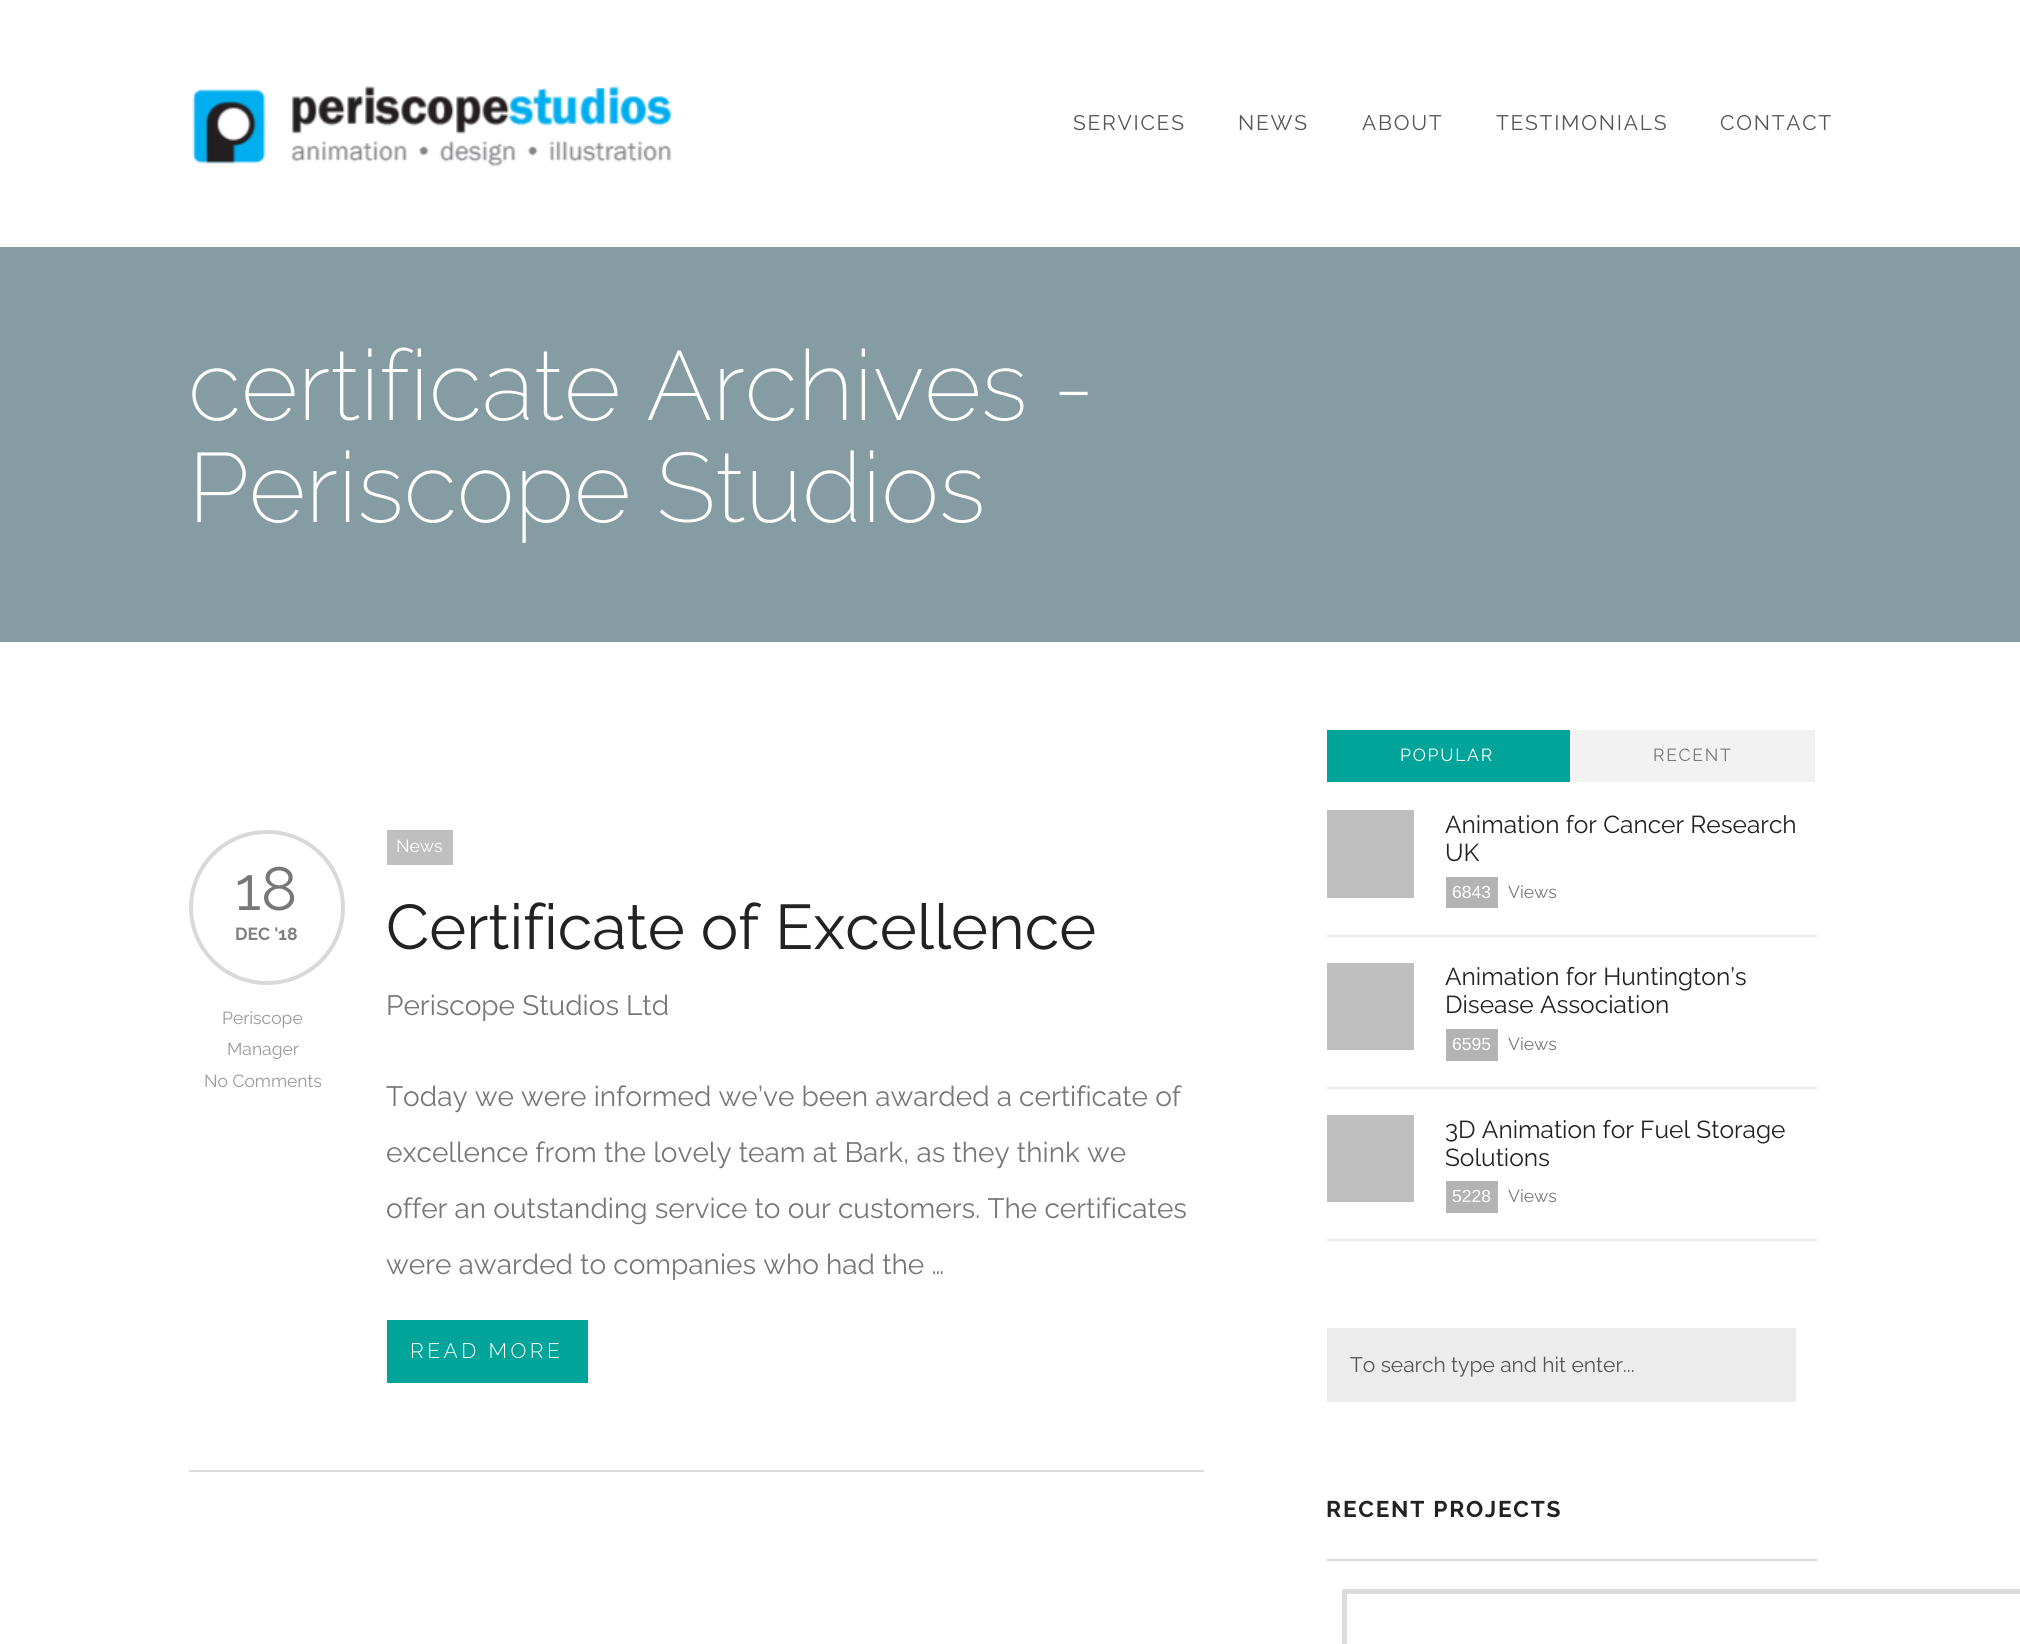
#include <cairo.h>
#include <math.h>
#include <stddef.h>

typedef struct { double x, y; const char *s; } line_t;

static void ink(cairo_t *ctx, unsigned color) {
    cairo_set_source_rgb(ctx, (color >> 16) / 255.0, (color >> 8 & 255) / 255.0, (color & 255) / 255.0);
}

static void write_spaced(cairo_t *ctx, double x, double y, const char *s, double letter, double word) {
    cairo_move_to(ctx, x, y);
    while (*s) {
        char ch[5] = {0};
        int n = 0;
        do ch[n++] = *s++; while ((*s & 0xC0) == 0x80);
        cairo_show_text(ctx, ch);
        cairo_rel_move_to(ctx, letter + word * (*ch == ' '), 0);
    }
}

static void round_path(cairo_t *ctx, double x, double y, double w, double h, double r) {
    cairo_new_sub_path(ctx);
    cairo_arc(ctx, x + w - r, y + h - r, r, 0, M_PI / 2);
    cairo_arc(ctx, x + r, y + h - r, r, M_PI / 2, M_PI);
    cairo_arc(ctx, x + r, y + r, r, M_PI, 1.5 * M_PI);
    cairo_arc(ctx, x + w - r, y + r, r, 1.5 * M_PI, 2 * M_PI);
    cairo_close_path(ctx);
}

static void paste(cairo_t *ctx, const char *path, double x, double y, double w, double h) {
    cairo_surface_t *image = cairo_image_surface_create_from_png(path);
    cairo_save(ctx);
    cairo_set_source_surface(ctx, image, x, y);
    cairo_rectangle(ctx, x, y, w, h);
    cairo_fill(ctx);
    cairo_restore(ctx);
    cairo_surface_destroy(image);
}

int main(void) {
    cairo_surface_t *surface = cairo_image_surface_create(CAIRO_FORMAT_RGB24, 2020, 1644);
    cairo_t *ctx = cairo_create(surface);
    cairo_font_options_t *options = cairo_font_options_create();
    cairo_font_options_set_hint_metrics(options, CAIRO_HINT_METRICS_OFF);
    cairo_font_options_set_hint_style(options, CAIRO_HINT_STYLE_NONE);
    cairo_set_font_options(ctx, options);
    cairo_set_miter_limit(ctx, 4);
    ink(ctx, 0xFFFFFF);
    cairo_paint(ctx);
    paste(ctx, "media/1.png", 192, 86, 480, 81);
    cairo_select_font_face(ctx, "Raleway", CAIRO_FONT_SLANT_NORMAL, CAIRO_FONT_WEIGHT_NORMAL);
    cairo_set_font_size(ctx, 21);
    ink(ctx, 0x555555);
    {
        static const line_t items[] = {
            {1073, 130, "SERVICES"},
            {1238, 130, "NEWS"},
            {1362, 130, "ABOUT"},
            {1496, 130, "TESTIMONIALS"},
            {1720, 130, "CONTACT"},
        };
        for (size_t i = 0; i < sizeof items / sizeof *items; i++) {
            write_spaced(ctx, items[i].x, items[i].y, items[i].s, 1.75, 0);
        }
    }
    ink(ctx, 0x869CA3);
    cairo_rectangle(ctx, 0, 247, 2020, 395);
    cairo_fill(ctx);
    cairo_select_font_face(ctx, "Raleway ExtraLight", CAIRO_FONT_SLANT_NORMAL, CAIRO_FONT_WEIGHT_NORMAL);
    cairo_set_font_size(ctx, 98);
    ink(ctx, 0xFFFFFF);
    cairo_move_to(ctx, 188, 420);
    cairo_show_text(ctx, "certificate Archives -");
    cairo_move_to(ctx, 188, 522);
    cairo_show_text(ctx, "Periscope Studios");
    ink(ctx, 0xDCDCDC);
    cairo_rectangle(ctx, 189, 1470, 1015, 2);
    cairo_fill(ctx);
    round_path(ctx, 191, 832, 152, 151, 75.5);
    ink(ctx, 0xD9D9D9);
    cairo_set_line_width(ctx, 4);
    cairo_stroke(ctx);
    cairo_select_font_face(ctx, "Raleway", CAIRO_FONT_SLANT_NORMAL, CAIRO_FONT_WEIGHT_NORMAL);
    cairo_set_font_size(ctx, 61);
    ink(ctx, 0x777777);
    cairo_move_to(ctx, 235, 910);
    cairo_show_text(ctx, "18");
    cairo_select_font_face(ctx, "Raleway", CAIRO_FONT_SLANT_NORMAL, CAIRO_FONT_WEIGHT_BOLD);
    cairo_set_font_size(ctx, 17.5);
    ink(ctx, 0x808080);
    cairo_move_to(ctx, 235, 940);
    cairo_show_text(ctx, "DEC '18");
    cairo_select_font_face(ctx, "Raleway", CAIRO_FONT_SLANT_NORMAL, CAIRO_FONT_WEIGHT_NORMAL);
    ink(ctx, 0x999999);
    {
        static const line_t items[] = {
            {222, 1024, "Periscope"},
            {227, 1055, "Manager"},
            {204, 1087, "No Comments"},
        };
        for (size_t i = 0; i < sizeof items / sizeof *items; i++) {
            cairo_move_to(ctx, items[i].x, items[i].y);
            cairo_show_text(ctx, items[i].s);
        }
    }
    ink(ctx, 0xBFBFBF);
    cairo_rectangle(ctx, 387, 830, 66, 35);
    cairo_fill(ctx);
    ink(ctx, 0xFFFFFF);
    cairo_move_to(ctx, 396, 852);
    cairo_show_text(ctx, "News");
    cairo_set_font_size(ctx, 63);
    ink(ctx, 0x222222);
    cairo_move_to(ctx, 386, 949);
    cairo_show_text(ctx, "Certificate of Excellence");
    cairo_set_font_size(ctx, 28);
    ink(ctx, 0x777777);
    {
        static const line_t items[] = {
            {386, 1015, "Periscope Studios Ltd"},
            {386, 1106, "Today we were informed we’ve been awarded a certificate of"},
            {386, 1162, "excellence from the lovely team at Bark, as they think we"},
            {386, 1218, "offer an outstanding service to our customers. The certificates"},
            {386, 1274, "were awarded to companies who had the …"},
        };
        for (size_t i = 0; i < sizeof items / sizeof *items; i++) {
            cairo_move_to(ctx, items[i].x, items[i].y);
            cairo_show_text(ctx, items[i].s);
        }
    }
    ink(ctx, 0x00A498);
    cairo_rectangle(ctx, 387, 1320, 201, 63);
    cairo_fill(ctx);
    cairo_select_font_face(ctx, "Raleway Light", CAIRO_FONT_SLANT_NORMAL, CAIRO_FONT_WEIGHT_NORMAL);
    cairo_set_font_size(ctx, 21);
    ink(ctx, 0xFFFFFF);
    write_spaced(ctx, 410, 1358, "READ MORE", 3.5, 0);
    ink(ctx, 0x00A498);
    cairo_rectangle(ctx, 1327, 730, 243, 52);
    cairo_fill(ctx);
    cairo_select_font_face(ctx, "Raleway", CAIRO_FONT_SLANT_NORMAL, CAIRO_FONT_WEIGHT_NORMAL);
    cairo_set_font_size(ctx, 17.5);
    ink(ctx, 0xFFFFFF);
    write_spaced(ctx, 1400, 761, "POPULAR", 1.75, 0);
    ink(ctx, 0xF2F2F2);
    cairo_rectangle(ctx, 1572, 730, 243, 52);
    cairo_fill(ctx);
    ink(ctx, 0x777777);
    write_spaced(ctx, 1653, 761, "RECENT", 1.75, 0);
    ink(ctx, 0xEBEBEB);
    cairo_rectangle(ctx, 1327, 935, 490, 2);
    cairo_fill(ctx);
    ink(ctx, 0xBFBFBF);
    cairo_rectangle(ctx, 1327, 810, 87, 88);
    cairo_fill(ctx);
    cairo_set_font_size(ctx, 24.5);
    ink(ctx, 0x222222);
    cairo_move_to(ctx, 1445, 833);
    cairo_show_text(ctx, "Animation for Cancer Research");
    cairo_move_to(ctx, 1445, 861);
    cairo_show_text(ctx, "UK");
    ink(ctx, 0xB3B3B3);
    cairo_rectangle(ctx, 1446, 877, 52, 31);
    cairo_fill(ctx);
    cairo_select_font_face(ctx, "Liberation Sans", CAIRO_FONT_SLANT_NORMAL, CAIRO_FONT_WEIGHT_NORMAL);
    cairo_set_font_size(ctx, 17.5);
    ink(ctx, 0xFFFFFF);
    cairo_move_to(ctx, 1452, 898);
    cairo_show_text(ctx, "6843");
    cairo_select_font_face(ctx, "Raleway", CAIRO_FONT_SLANT_NORMAL, CAIRO_FONT_WEIGHT_NORMAL);
    ink(ctx, 0x777777);
    cairo_move_to(ctx, 1508, 898);
    cairo_show_text(ctx, "Views");
    ink(ctx, 0xEBEBEB);
    cairo_rectangle(ctx, 1327, 1087, 490, 2);
    cairo_fill(ctx);
    ink(ctx, 0xBFBFBF);
    cairo_rectangle(ctx, 1327, 963, 87, 87);
    cairo_fill(ctx);
    cairo_set_font_size(ctx, 24.5);
    ink(ctx, 0x222222);
    cairo_move_to(ctx, 1445, 985);
    cairo_show_text(ctx, "Animation for Huntington’s");
    cairo_move_to(ctx, 1445, 1013);
    cairo_show_text(ctx, "Disease Association");
    ink(ctx, 0xB3B3B3);
    cairo_rectangle(ctx, 1446, 1029, 52, 32);
    cairo_fill(ctx);
    cairo_select_font_face(ctx, "Liberation Sans", CAIRO_FONT_SLANT_NORMAL, CAIRO_FONT_WEIGHT_NORMAL);
    cairo_set_font_size(ctx, 17.5);
    ink(ctx, 0xFFFFFF);
    cairo_move_to(ctx, 1452, 1050);
    cairo_show_text(ctx, "6595");
    cairo_select_font_face(ctx, "Raleway", CAIRO_FONT_SLANT_NORMAL, CAIRO_FONT_WEIGHT_NORMAL);
    ink(ctx, 0x777777);
    cairo_move_to(ctx, 1508, 1050);
    cairo_show_text(ctx, "Views");
    ink(ctx, 0xEBEBEB);
    cairo_rectangle(ctx, 1327, 1239, 490, 2);
    cairo_fill(ctx);
    ink(ctx, 0xBFBFBF);
    cairo_rectangle(ctx, 1327, 1115, 87, 87);
    cairo_fill(ctx);
    cairo_set_font_size(ctx, 24.5);
    ink(ctx, 0x222222);
    cairo_move_to(ctx, 1445, 1138);
    cairo_show_text(ctx, "3D Animation for Fuel Storage");
    cairo_move_to(ctx, 1445, 1166);
    cairo_show_text(ctx, "Solutions");
    ink(ctx, 0xB3B3B3);
    cairo_rectangle(ctx, 1446, 1181, 52, 32);
    cairo_fill(ctx);
    cairo_select_font_face(ctx, "Liberation Sans", CAIRO_FONT_SLANT_NORMAL, CAIRO_FONT_WEIGHT_NORMAL);
    cairo_set_font_size(ctx, 17.5);
    ink(ctx, 0xFFFFFF);
    cairo_move_to(ctx, 1452, 1202);
    cairo_show_text(ctx, "5228");
    cairo_select_font_face(ctx, "Raleway", CAIRO_FONT_SLANT_NORMAL, CAIRO_FONT_WEIGHT_NORMAL);
    ink(ctx, 0x777777);
    cairo_move_to(ctx, 1508, 1202);
    cairo_show_text(ctx, "Views");
    ink(ctx, 0xECECEC);
    cairo_rectangle(ctx, 1327, 1328, 469, 74);
    cairo_fill(ctx);
    cairo_set_font_size(ctx, 21);
    ink(ctx, 0x555555);
    cairo_move_to(ctx, 1350, 1372);
    cairo_show_text(ctx, "To search type and hit enter...");
    ink(ctx, 0xD9D9D9);
    cairo_rectangle(ctx, 1327, 1559, 490, 2);
    cairo_fill(ctx);
    cairo_select_font_face(ctx, "Raleway", CAIRO_FONT_SLANT_NORMAL, CAIRO_FONT_WEIGHT_BOLD);
    cairo_set_font_size(ctx, 22.75);
    ink(ctx, 0x222222);
    write_spaced(ctx, 1326, 1517, "RECENT PROJECTS", 1.75, 0);
    cairo_rectangle(ctx, 1344.5, 1591.5, 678, 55);
    ink(ctx, 0xDCDCDC);
    cairo_set_line_width(ctx, 5);
    cairo_stroke(ctx);
    cairo_surface_write_to_png(surface, "image.png");
    cairo_font_options_destroy(options);
    cairo_destroy(ctx);
    cairo_surface_destroy(surface);
    return 0;
}
